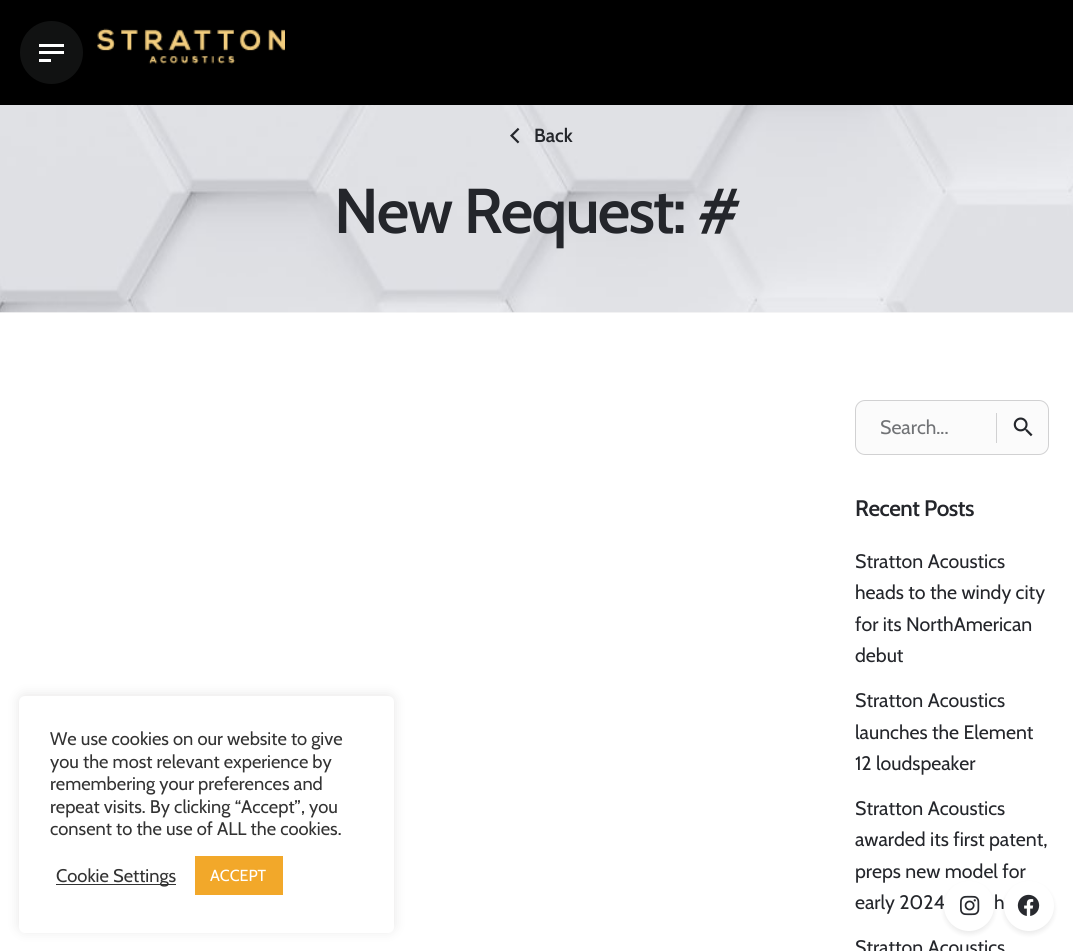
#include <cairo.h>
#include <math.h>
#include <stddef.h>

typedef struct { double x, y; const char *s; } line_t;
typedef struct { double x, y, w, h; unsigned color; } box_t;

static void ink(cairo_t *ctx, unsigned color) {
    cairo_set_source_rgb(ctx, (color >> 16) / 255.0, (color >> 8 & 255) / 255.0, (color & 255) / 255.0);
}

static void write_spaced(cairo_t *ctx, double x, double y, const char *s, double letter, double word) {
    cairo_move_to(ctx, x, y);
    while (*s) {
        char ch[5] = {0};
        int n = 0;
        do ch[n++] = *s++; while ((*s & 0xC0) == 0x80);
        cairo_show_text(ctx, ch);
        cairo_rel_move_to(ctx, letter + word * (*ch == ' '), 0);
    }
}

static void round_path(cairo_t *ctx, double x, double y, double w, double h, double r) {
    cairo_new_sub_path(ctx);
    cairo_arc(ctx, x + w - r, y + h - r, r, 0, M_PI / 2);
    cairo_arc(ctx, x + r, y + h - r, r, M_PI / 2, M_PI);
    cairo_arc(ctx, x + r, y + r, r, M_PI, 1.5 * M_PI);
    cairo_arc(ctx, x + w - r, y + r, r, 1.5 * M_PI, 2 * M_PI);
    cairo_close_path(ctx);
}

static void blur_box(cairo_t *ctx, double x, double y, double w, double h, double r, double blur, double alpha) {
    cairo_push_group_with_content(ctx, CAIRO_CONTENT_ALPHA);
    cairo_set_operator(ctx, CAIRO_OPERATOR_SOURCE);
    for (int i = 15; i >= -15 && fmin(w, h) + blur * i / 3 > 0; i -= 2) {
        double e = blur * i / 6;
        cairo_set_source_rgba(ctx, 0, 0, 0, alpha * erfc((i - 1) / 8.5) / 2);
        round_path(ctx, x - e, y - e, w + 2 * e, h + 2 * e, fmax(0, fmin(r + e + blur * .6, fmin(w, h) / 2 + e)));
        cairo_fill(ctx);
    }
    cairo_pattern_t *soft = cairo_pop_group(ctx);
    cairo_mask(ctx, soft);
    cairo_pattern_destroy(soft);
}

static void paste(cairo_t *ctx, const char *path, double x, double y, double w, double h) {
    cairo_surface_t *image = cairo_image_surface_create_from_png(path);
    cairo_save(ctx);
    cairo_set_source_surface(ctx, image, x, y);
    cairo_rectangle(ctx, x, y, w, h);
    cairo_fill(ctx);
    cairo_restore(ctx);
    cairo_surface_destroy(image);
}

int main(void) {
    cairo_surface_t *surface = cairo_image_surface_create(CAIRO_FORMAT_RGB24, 1073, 951);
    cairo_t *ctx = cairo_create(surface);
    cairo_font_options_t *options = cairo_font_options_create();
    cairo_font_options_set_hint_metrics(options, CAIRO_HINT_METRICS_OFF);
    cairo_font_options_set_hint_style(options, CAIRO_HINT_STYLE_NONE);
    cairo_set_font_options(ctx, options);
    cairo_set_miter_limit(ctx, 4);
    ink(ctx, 0xFFFFFF);
    cairo_paint(ctx);
    ink(ctx, 0xACABAB);
    blur_box(ctx, 19, 695, 375, 236, 6, 6, 0.3);
    ink(ctx, 0xFFFFFF);
    round_path(ctx, 19, 696, 375, 237, 6);
    cairo_fill(ctx);
    cairo_select_font_face(ctx, "Cabin", CAIRO_FONT_SLANT_NORMAL, CAIRO_FONT_WEIGHT_NORMAL);
    cairo_set_font_size(ctx, 18.3);
    ink(ctx, 0x333333);
    {
        static const line_t items[] = {
            {50, 745, "We use cookies on our website to give"},
            {50, 768, "you the most relevant experience by"},
            {50, 790, "remembering your preferences and"},
            {50, 813, "repeat visits. By clicking “Accept”, you"},
            {50, 835, "consent to the use of ALL the cookies."},
        };
        for (size_t i = 0; i < sizeof items / sizeof *items; i++) {
            cairo_move_to(ctx, items[i].x, items[i].y);
            cairo_show_text(ctx, items[i].s);
        }
    }
    cairo_rectangle(ctx, 56, 884, 120, 1);
    cairo_fill(ctx);
    cairo_move_to(ctx, 56, 882);
    cairo_show_text(ctx, "Cookie Settings");
    ink(ctx, 0xF2A82A);
    cairo_rectangle(ctx, 195, 856, 88, 39);
    cairo_fill(ctx);
    cairo_set_font_size(ctx, 16);
    ink(ctx, 0xFFFFFF);
    cairo_move_to(ctx, 210, 881);
    cairo_show_text(ctx, "ACCEPT");
    ink(ctx, 0x000000);
    cairo_rectangle(ctx, 0, 0, 1073, 105);
    cairo_fill(ctx);
    ink(ctx, 0x111212);
    cairo_arc(ctx, 51.5, 52.5, 31.5, 0, 2 * M_PI);
    cairo_fill(ctx);
    {
        static const box_t items[] = {
            {39, 44, 25, 3, 0xFFFFFF},
            {39, 51, 25, 3, 0xFFFFFF},
            {39, 59, 12, 3, 0xFFFFFF},
        };
        for (size_t i = 0; i < sizeof items / sizeof *items; i++) {
            ink(ctx, items[i].color);
            cairo_rectangle(ctx, items[i].x, items[i].y, items[i].w, items[i].h);
            cairo_fill(ctx);
        }
    }
    paste(ctx, "media/1.png", 97, 28, 188, 36);
    ink(ctx, 0xF7F7F7);
    cairo_rectangle(ctx, 0, 312, 1073, 1);
    cairo_fill(ctx);
    paste(ctx, "media/2.png", 0, 105, 1073, 208);
    paste(ctx, "media/3.png", 510, 127, 10, 17);
    cairo_select_font_face(ctx, "Cabin SemiBold", CAIRO_FONT_SLANT_NORMAL, CAIRO_FONT_WEIGHT_NORMAL);
    cairo_set_font_size(ctx, 19);
    ink(ctx, 0x24262B);
    cairo_move_to(ctx, 534, 142);
    cairo_show_text(ctx, "Back");
    cairo_set_font_size(ctx, 63.25);
    write_spaced(ctx, 334, 233, "New Request: #", -1.9, 0);
    ink(ctx, 0xFBFBFB);
    round_path(ctx, 855.5, 400.5, 193, 54, 9.5);
    cairo_fill_preserve(ctx);
    ink(ctx, 0xD1D1D2);
    cairo_set_line_width(ctx, 1);
    cairo_stroke(ctx);
    cairo_select_font_face(ctx, "Cabin", CAIRO_FONT_SLANT_NORMAL, CAIRO_FONT_WEIGHT_NORMAL);
    cairo_set_font_size(ctx, 19.5);
    ink(ctx, 0x717376);
    cairo_move_to(ctx, 880, 434);
    cairo_show_text(ctx, "Search...");
    ink(ctx, 0xD1D1D2);
    cairo_rectangle(ctx, 996, 413, 1, 30);
    cairo_fill(ctx);
    paste(ctx, "media/4.png", 1013, 417, 20, 20);
    cairo_select_font_face(ctx, "Cabin SemiBold", CAIRO_FONT_SLANT_NORMAL, CAIRO_FONT_WEIGHT_NORMAL);
    cairo_set_font_size(ctx, 22.5);
    ink(ctx, 0x24262B);
    write_spaced(ctx, 855, 516, "Recent Posts", -0.5, 0);
    cairo_select_font_face(ctx, "Cabin", CAIRO_FONT_SLANT_NORMAL, CAIRO_FONT_WEIGHT_NORMAL);
    cairo_set_font_size(ctx, 19.5);
    {
        static const line_t items[] = {
            {855, 568, "Stratton Acoustics"},
            {855, 599, "heads to the windy city"},
            {855, 631, "for its NorthAmerican"},
            {855, 662, "debut"},
            {855, 707, "Stratton Acoustics"},
            {855, 739, "launches the Element"},
            {855, 770, "12 loudspeaker"},
            {855, 815, "Stratton Acoustics"},
            {855, 846, "awarded its first patent,"},
            {855, 878, "preps new model for"},
            {855, 909, "early 2024"},
            {994, 909, "h"},
            {855, 954, "Stratton Acoustics"},
        };
        for (size_t i = 0; i < sizeof items / sizeof *items; i++) {
            cairo_move_to(ctx, items[i].x, items[i].y);
            cairo_show_text(ctx, items[i].s);
        }
    }
    ink(ctx, 0x000000);
    blur_box(ctx, 944, 884, 50, 50, 25, 2.5, 0.08);
    ink(ctx, 0xFFFFFF);
    cairo_arc(ctx, 969, 906, 23.5, 0, 2 * M_PI);
    cairo_fill_preserve(ctx);
    cairo_set_line_width(ctx, 3);
    cairo_stroke(ctx);
    paste(ctx, "media/5.png", 960, 895, 20, 21);
    ink(ctx, 0x000000);
    blur_box(ctx, 1004, 884, 50, 50, 25, 2.5, 0.08);
    ink(ctx, 0xFFFFFF);
    cairo_arc(ctx, 1029, 906, 23.5, 0, 2 * M_PI);
    cairo_fill_preserve(ctx);
    cairo_stroke(ctx);
    paste(ctx, "media/6.png", 1017, 894, 23, 22);
    cairo_surface_write_to_png(surface, "image.png");
    cairo_font_options_destroy(options);
    cairo_destroy(ctx);
    cairo_surface_destroy(surface);
    return 0;
}
